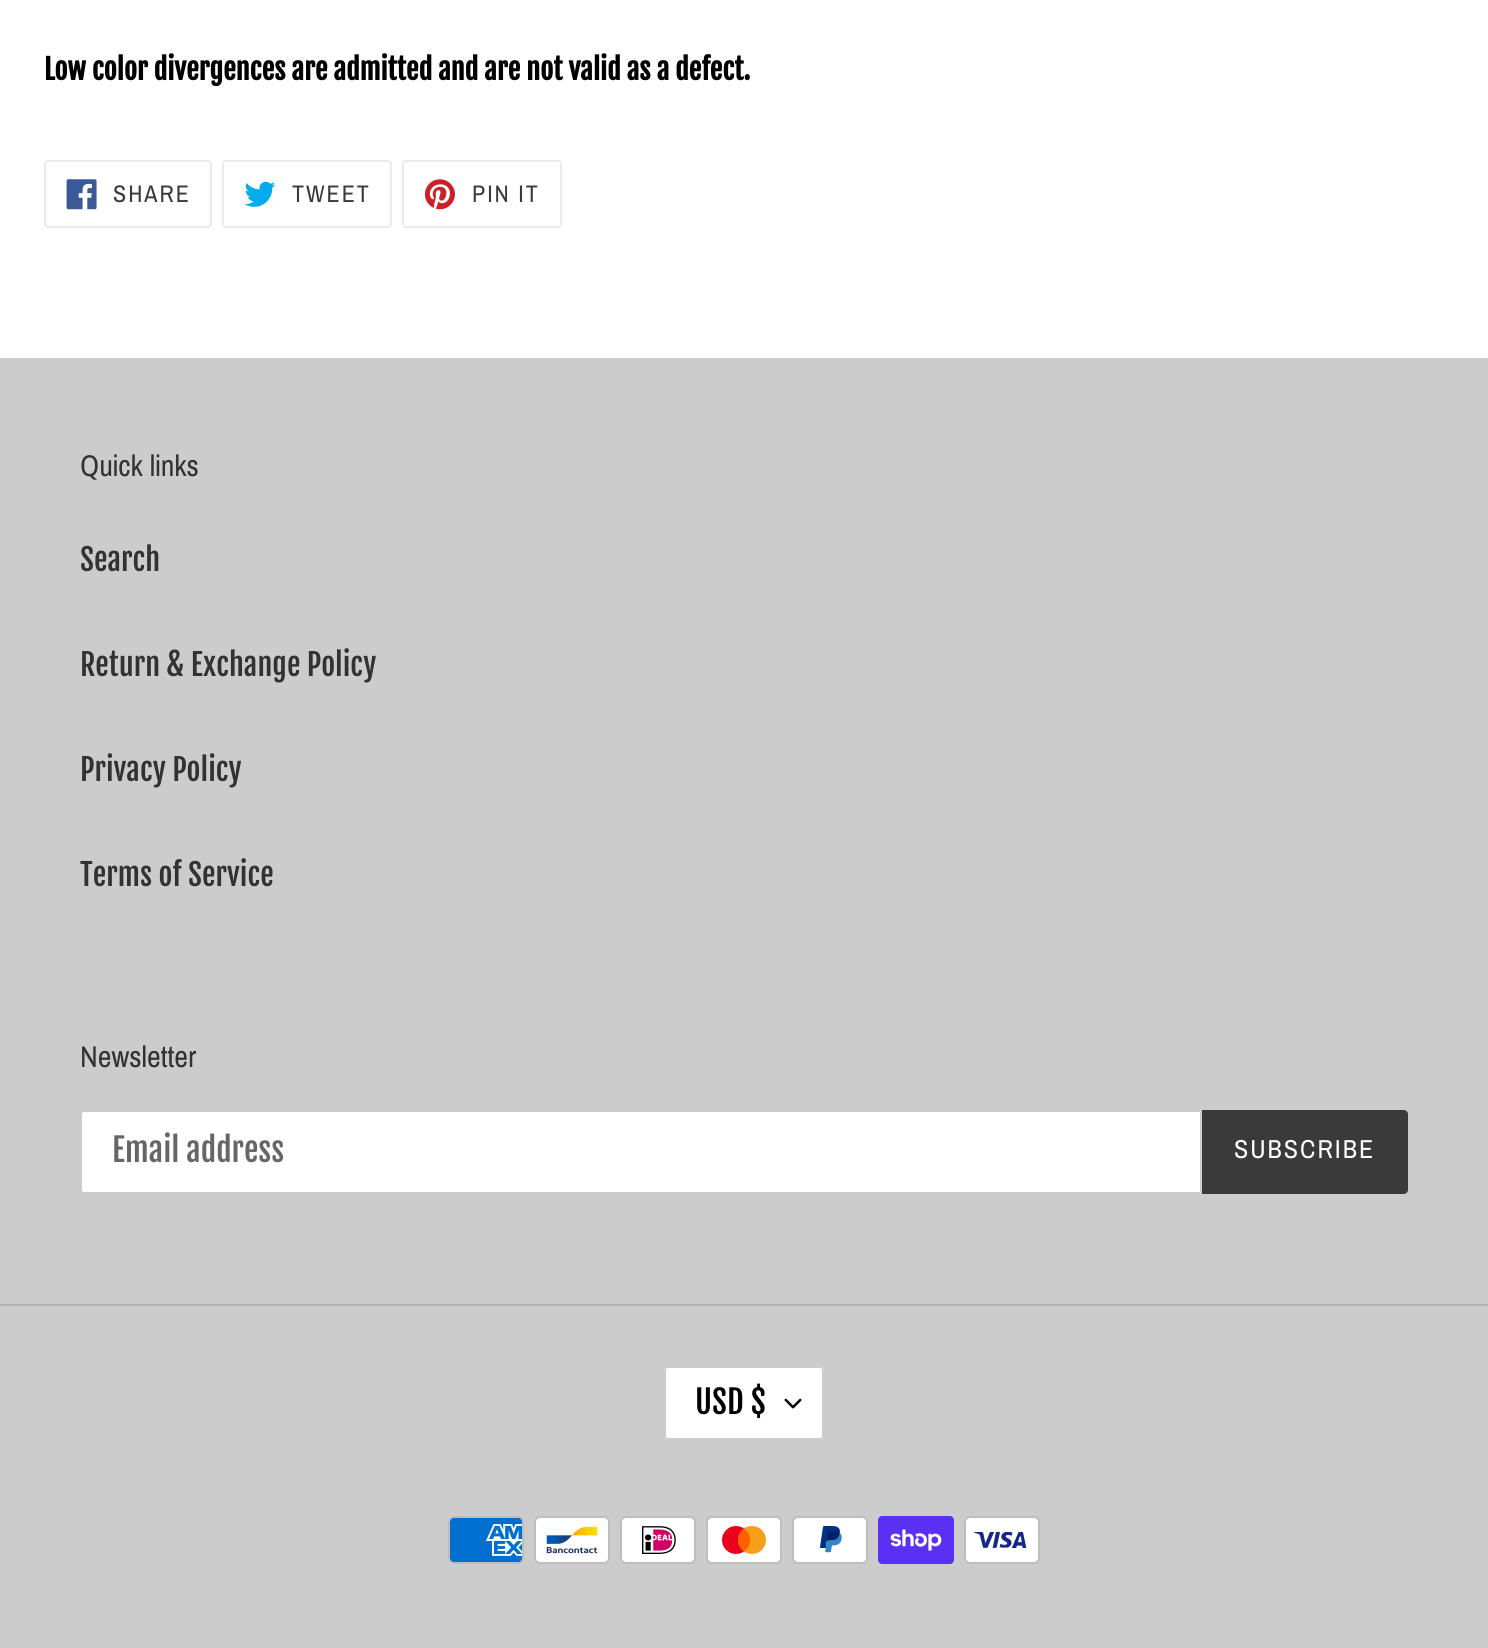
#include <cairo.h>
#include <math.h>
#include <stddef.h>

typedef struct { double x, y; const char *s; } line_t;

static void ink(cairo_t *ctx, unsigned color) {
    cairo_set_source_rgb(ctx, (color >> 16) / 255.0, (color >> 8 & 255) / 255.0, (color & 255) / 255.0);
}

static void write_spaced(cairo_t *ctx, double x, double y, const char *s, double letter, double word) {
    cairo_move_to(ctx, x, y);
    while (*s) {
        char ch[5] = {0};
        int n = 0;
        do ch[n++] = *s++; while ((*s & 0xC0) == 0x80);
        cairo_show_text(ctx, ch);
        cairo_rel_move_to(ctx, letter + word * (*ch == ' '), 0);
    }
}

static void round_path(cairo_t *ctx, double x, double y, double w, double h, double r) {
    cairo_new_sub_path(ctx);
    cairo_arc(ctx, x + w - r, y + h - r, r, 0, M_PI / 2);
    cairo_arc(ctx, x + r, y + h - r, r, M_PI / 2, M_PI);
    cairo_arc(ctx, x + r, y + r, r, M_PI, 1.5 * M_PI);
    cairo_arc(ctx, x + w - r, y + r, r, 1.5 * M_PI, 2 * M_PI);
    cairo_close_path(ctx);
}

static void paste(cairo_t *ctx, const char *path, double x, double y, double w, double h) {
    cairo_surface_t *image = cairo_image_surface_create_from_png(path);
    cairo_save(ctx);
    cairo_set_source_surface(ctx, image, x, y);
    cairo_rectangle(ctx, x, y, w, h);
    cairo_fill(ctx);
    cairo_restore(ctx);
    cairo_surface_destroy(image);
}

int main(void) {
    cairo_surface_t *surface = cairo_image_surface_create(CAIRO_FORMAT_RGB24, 1488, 1648);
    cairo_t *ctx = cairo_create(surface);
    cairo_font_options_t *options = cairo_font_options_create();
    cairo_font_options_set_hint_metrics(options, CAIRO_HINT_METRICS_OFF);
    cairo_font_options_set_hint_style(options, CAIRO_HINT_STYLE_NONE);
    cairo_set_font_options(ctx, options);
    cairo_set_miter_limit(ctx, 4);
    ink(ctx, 0xFFFFFF);
    cairo_paint(ctx);
    cairo_select_font_face(ctx, "Fjalla One", CAIRO_FONT_SLANT_NORMAL, CAIRO_FONT_WEIGHT_BOLD);
    cairo_set_font_size(ctx, 28);
    ink(ctx, 0x000000);
    cairo_move_to(ctx, 44, 80);
    cairo_show_text(ctx, "Low color divergences are admitted and are not valid as a defect.");
    round_path(ctx, 45, 161, 166, 66, 3);
    ink(ctx, 0xEBEBEB);
    cairo_stroke(ctx);
    paste(ctx, "media/1.png", 66, 179, 31, 31);
    cairo_select_font_face(ctx, "Archivo Narrow", CAIRO_FONT_SLANT_NORMAL, CAIRO_FONT_WEIGHT_NORMAL);
    cairo_set_font_size(ctx, 24);
    ink(ctx, 0x3A3A3A);
    write_spaced(ctx, 113, 202, "SHARE", 2, 0);
    round_path(ctx, 223, 161, 168, 66, 3);
    ink(ctx, 0xEBEBEB);
    cairo_stroke(ctx);
    paste(ctx, "media/2.png", 244, 181, 32, 26);
    ink(ctx, 0x3A3A3A);
    write_spaced(ctx, 292, 202, "TWEET", 2, 0);
    round_path(ctx, 403, 161, 158, 66, 3);
    ink(ctx, 0xEBEBEB);
    cairo_stroke(ctx);
    paste(ctx, "media/3.png", 424, 179, 31, 31);
    ink(ctx, 0x3A3A3A);
    write_spaced(ctx, 472, 202, "PIN IT", 2, 0);
    ink(ctx, 0xCCCCCC);
    cairo_rectangle(ctx, 0, 358, 1488, 1290);
    cairo_fill(ctx);
    cairo_set_font_size(ctx, 30);
    ink(ctx, 0x333232);
    cairo_move_to(ctx, 80, 476);
    cairo_show_text(ctx, "Quick links");
    cairo_select_font_face(ctx, "Fjalla One", CAIRO_FONT_SLANT_NORMAL, CAIRO_FONT_WEIGHT_NORMAL);
    {
        static const line_t items[] = {
            {80, 571, "Search"},
            {80, 676, "Return & Exchange Policy"},
            {80, 781, "Privacy Policy"},
            {80, 886, "Terms of Service"},
        };
        for (size_t i = 0; i < sizeof items / sizeof *items; i++) {
            cairo_move_to(ctx, items[i].x, items[i].y);
            cairo_show_text(ctx, items[i].s);
        }
    }
    cairo_select_font_face(ctx, "Archivo Narrow", CAIRO_FONT_SLANT_NORMAL, CAIRO_FONT_WEIGHT_NORMAL);
    cairo_move_to(ctx, 80, 1067);
    cairo_show_text(ctx, "Newsletter");
    ink(ctx, 0xFFFFFF);
    cairo_new_path(ctx);
    cairo_move_to(ctx, 84, 1111);
    cairo_line_to(ctx, 1201, 1111);
    cairo_line_to(ctx, 1201, 1193);
    cairo_line_to(ctx, 84, 1193);
    cairo_curve_to(ctx, 82.5, 1193, 81, 1191.5, 81, 1190);
    cairo_line_to(ctx, 81, 1114);
    cairo_curve_to(ctx, 81, 1112.5, 82.5, 1111, 84, 1111);
    cairo_close_path(ctx);
    cairo_fill_preserve(ctx);
    ink(ctx, 0xCCCCCC);
    cairo_stroke(ctx);
    cairo_select_font_face(ctx, "Fjalla One", CAIRO_FONT_SLANT_NORMAL, CAIRO_FONT_WEIGHT_NORMAL);
    cairo_set_font_size(ctx, 32);
    ink(ctx, 0x666666);
    cairo_move_to(ctx, 112, 1162);
    cairo_show_text(ctx, "Email address");
    ink(ctx, 0x3A3A3A);
    cairo_new_path(ctx);
    cairo_move_to(ctx, 1202, 1110);
    cairo_line_to(ctx, 1404, 1110);
    cairo_curve_to(ctx, 1406, 1110, 1408, 1112, 1408, 1114);
    cairo_line_to(ctx, 1408, 1190);
    cairo_curve_to(ctx, 1408, 1192, 1406, 1194, 1404, 1194);
    cairo_line_to(ctx, 1202, 1194);
    cairo_close_path(ctx);
    cairo_fill(ctx);
    cairo_select_font_face(ctx, "Archivo Narrow", CAIRO_FONT_SLANT_NORMAL, CAIRO_FONT_WEIGHT_NORMAL);
    cairo_set_font_size(ctx, 26);
    ink(ctx, 0xFFFFFF);
    write_spaced(ctx, 1234, 1158, "SUBSCRIBE", 2, 0);
    ink(ctx, 0xB3B3B3);
    cairo_rectangle(ctx, 0, 1304, 1488, 2);
    cairo_fill(ctx);
    ink(ctx, 0xFFFFFF);
    round_path(ctx, 664, 1366, 160, 74, 4);
    cairo_fill(ctx);
    paste(ctx, "media/4.png", 784, 1398, 18, 11);
    round_path(ctx, 665, 1367, 158, 72, 3);
    ink(ctx, 0xCCCCCC);
    cairo_stroke(ctx);
    cairo_select_font_face(ctx, "Fjalla One", CAIRO_FONT_SLANT_NORMAL, CAIRO_FONT_WEIGHT_NORMAL);
    cairo_set_font_size(ctx, 32);
    ink(ctx, 0x000000);
    cairo_move_to(ctx, 695, 1414);
    cairo_show_text(ctx, "USD $");
    paste(ctx, "media/5.png", 448, 1516, 76, 48);
    paste(ctx, "media/6.png", 534, 1516, 76, 48);
    paste(ctx, "media/7.png", 620, 1516, 76, 48);
    paste(ctx, "media/8.png", 706, 1516, 76, 48);
    paste(ctx, "media/9.png", 792, 1516, 76, 48);
    paste(ctx, "media/10.png", 878, 1516, 76, 48);
    paste(ctx, "media/11.png", 964, 1516, 76, 48);
    cairo_surface_write_to_png(surface, "image.png");
    cairo_font_options_destroy(options);
    cairo_destroy(ctx);
    cairo_surface_destroy(surface);
    return 0;
}
